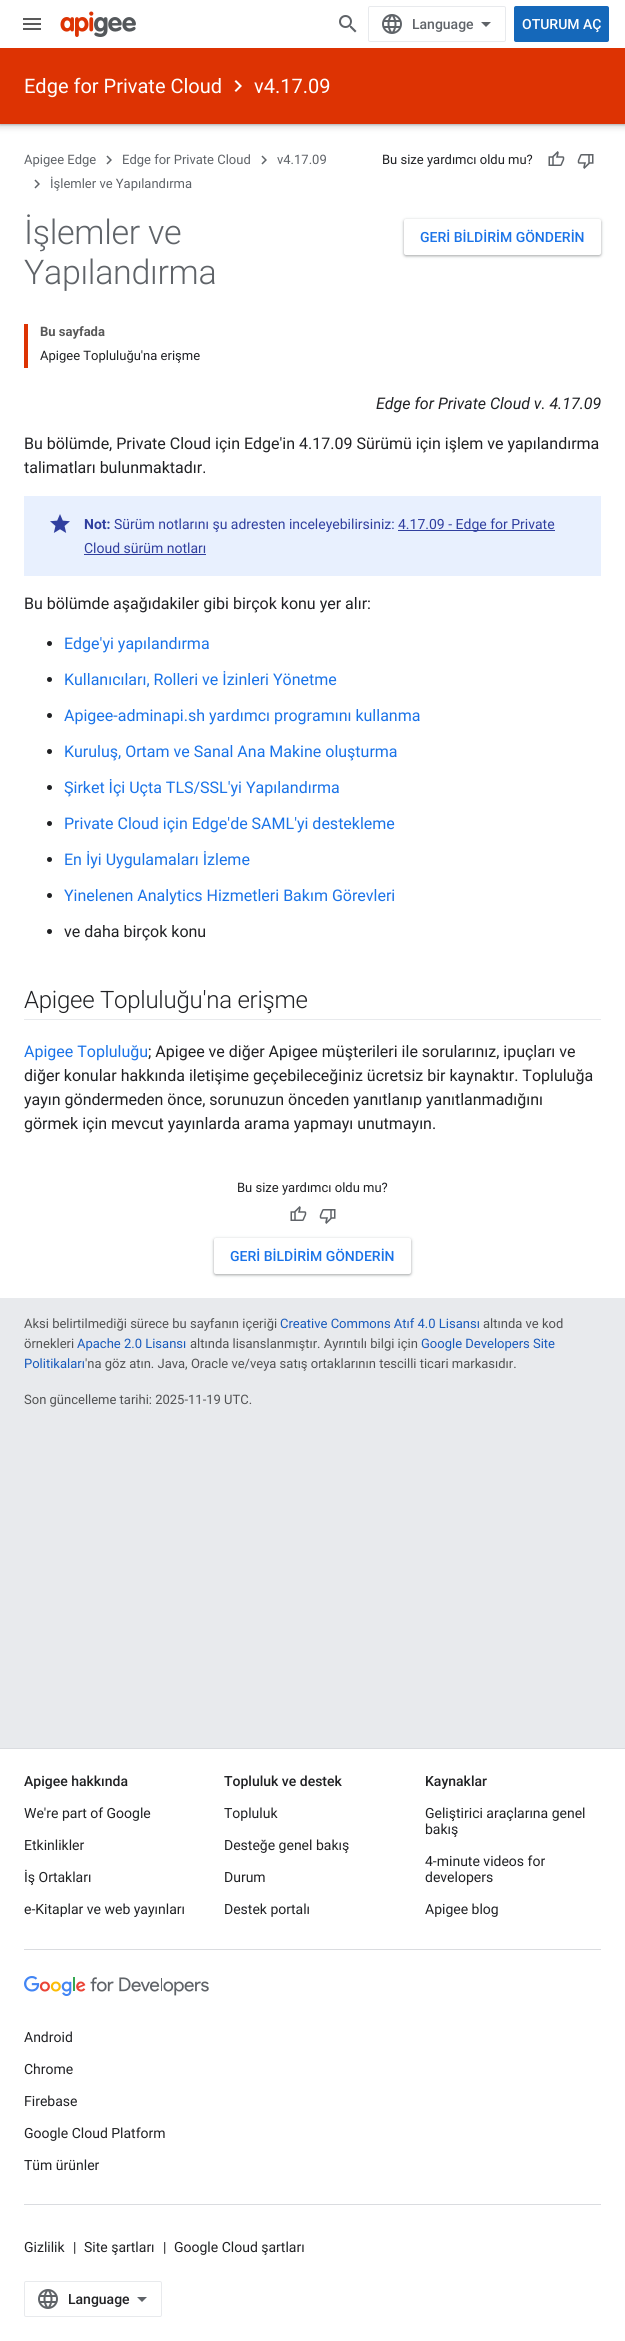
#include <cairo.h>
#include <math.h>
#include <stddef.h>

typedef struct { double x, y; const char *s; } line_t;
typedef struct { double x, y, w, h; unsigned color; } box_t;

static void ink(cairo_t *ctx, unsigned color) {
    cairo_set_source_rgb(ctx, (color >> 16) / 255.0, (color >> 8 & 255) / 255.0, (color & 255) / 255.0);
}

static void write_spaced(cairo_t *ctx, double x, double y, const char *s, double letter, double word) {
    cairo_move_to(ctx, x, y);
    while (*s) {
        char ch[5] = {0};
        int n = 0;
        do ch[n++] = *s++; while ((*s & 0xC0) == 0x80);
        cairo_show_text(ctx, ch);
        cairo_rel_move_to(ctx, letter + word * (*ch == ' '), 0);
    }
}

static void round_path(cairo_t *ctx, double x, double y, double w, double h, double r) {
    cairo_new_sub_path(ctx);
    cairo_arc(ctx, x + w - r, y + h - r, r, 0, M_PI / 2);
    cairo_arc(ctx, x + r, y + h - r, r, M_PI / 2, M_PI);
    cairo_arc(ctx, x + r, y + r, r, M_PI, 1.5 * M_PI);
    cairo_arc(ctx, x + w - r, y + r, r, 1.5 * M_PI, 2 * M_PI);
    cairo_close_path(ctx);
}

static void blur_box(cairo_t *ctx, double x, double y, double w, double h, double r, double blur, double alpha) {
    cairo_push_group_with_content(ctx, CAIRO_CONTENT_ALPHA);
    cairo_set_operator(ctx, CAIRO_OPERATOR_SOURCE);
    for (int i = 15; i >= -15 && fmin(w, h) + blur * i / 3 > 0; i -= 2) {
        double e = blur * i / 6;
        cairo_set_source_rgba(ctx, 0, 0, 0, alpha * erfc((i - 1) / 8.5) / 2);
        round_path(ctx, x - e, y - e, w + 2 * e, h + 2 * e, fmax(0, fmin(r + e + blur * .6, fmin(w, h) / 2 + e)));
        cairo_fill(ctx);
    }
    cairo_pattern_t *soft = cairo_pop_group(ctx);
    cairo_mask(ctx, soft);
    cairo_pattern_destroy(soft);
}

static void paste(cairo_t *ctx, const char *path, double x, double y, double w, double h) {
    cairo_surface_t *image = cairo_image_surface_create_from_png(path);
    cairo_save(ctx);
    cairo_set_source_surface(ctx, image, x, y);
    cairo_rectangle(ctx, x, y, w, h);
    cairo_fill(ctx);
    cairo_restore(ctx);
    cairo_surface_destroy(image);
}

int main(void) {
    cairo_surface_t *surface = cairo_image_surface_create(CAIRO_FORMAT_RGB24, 625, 2341);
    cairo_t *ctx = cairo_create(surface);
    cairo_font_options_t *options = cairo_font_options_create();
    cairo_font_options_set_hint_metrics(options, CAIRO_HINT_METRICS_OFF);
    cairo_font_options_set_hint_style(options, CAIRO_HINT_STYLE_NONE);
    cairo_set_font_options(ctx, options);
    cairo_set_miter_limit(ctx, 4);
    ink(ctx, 0xE8EAED);
    cairo_paint(ctx);
    ink(ctx, 0xFFFFFF);
    cairo_rectangle(ctx, 0, 124, 625, 1174);
    cairo_fill(ctx);
    ink(ctx, 0x3C4043);
    blur_box(ctx, -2, 48, 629, 80, 0, 3, 0.15);
    blur_box(ctx, 0, 49, 625, 76, 0, 1, 0.3);
    ink(ctx, 0xFFFFFF);
    cairo_rectangle(ctx, 0, 0, 625, 48);
    cairo_fill(ctx);
    paste(ctx, "media/1.png", 23, 18, 18, 12);
    paste(ctx, "media/2.png", 60, 11, 76, 26);
    paste(ctx, "media/3.png", 339, 15, 18, 18);
    round_path(ctx, 368.5, 6.5, 137, 35, 1.5);
    ink(ctx, 0xE8EAED);
    cairo_set_line_width(ctx, 1);
    cairo_stroke(ctx);
    paste(ctx, "media/4.png", 382, 14, 20, 20);
    cairo_select_font_face(ctx, "Roboto Medium", CAIRO_FONT_SLANT_NORMAL, CAIRO_FONT_WEIGHT_NORMAL);
    cairo_set_font_size(ctx, 14);
    ink(ctx, 0x5F6368);
    cairo_move_to(ctx, 412, 29);
    cairo_show_text(ctx, "Language");
    cairo_new_path(ctx);
    cairo_move_to(ctx, 486, 27);
    cairo_line_to(ctx, 481, 22);
    cairo_line_to(ctx, 491, 22);
    cairo_close_path(ctx);
    cairo_fill(ctx);
    ink(ctx, 0x1568BA);
    round_path(ctx, 514, 6, 95, 36, 2);
    cairo_fill(ctx);
    ink(ctx, 0xFFFFFF);
    cairo_move_to(ctx, 522, 29);
    cairo_show_text(ctx, "OTURUM AÇ");
    ink(ctx, 0xDD3303);
    cairo_rectangle(ctx, 0, 48, 625, 76);
    cairo_fill(ctx);
    cairo_select_font_face(ctx, "Roboto", CAIRO_FONT_SLANT_NORMAL, CAIRO_FONT_WEIGHT_NORMAL);
    cairo_set_font_size(ctx, 20);
    ink(ctx, 0xFFFFFF);
    cairo_move_to(ctx, 24, 93);
    cairo_show_text(ctx, "Edge for Private Cloud");
    paste(ctx, "media/5.png", 234, 80, 8, 12);
    cairo_move_to(ctx, 254, 93);
    cairo_show_text(ctx, "v4.17.09");
    cairo_set_font_size(ctx, 13);
    ink(ctx, 0x5F6368);
    cairo_move_to(ctx, 24, 164);
    cairo_show_text(ctx, "Apigee Edge");
    paste(ctx, "media/6.png", 106, 155, 6, 10);
    cairo_move_to(ctx, 122, 164);
    cairo_show_text(ctx, "Edge for Private Cloud");
    paste(ctx, "media/6.png", 261, 155, 6, 10);
    cairo_move_to(ctx, 277, 164);
    cairo_show_text(ctx, "v4.17.09");
    paste(ctx, "media/6.png", 34, 179, 6, 10);
    cairo_move_to(ctx, 50, 188);
    cairo_show_text(ctx, "İşlemler ve Yapılandırma");
    ink(ctx, 0x202124);
    cairo_move_to(ctx, 382, 164);
    cairo_show_text(ctx, "Bu size yardımcı oldu mu?");
    paste(ctx, "media/7.png", 548, 151, 17, 15);
    paste(ctx, "media/8.png", 577, 154, 17, 15);
    cairo_select_font_face(ctx, "Roboto Light", CAIRO_FONT_SLANT_NORMAL, CAIRO_FONT_WEIGHT_NORMAL);
    cairo_set_font_size(ctx, 34);
    ink(ctx, 0x5F6368);
    write_spaced(ctx, 24, 244, "İşlemler ve", -0.3, 0);
    ink(ctx, 0x3C4043);
    blur_box(ctx, 403, 219, 199, 38, 3, 1.5, 0.15);
    blur_box(ctx, 404, 220, 197, 36, 2, 1, 0.3);
    ink(ctx, 0xFFFFFF);
    round_path(ctx, 404, 219, 197, 36, 2);
    cairo_fill(ctx);
    cairo_select_font_face(ctx, "Roboto Medium", CAIRO_FONT_SLANT_NORMAL, CAIRO_FONT_WEIGHT_NORMAL);
    cairo_set_font_size(ctx, 14);
    ink(ctx, 0x1A73E8);
    cairo_move_to(ctx, 420, 242);
    cairo_show_text(ctx, "GERİ BİLDİRİM GÖNDERİN");
    cairo_select_font_face(ctx, "Roboto Light", CAIRO_FONT_SLANT_NORMAL, CAIRO_FONT_WEIGHT_NORMAL);
    cairo_set_font_size(ctx, 34);
    ink(ctx, 0x5F6368);
    write_spaced(ctx, 24, 284, "Yapılandırma", -0.3, 0);
    ink(ctx, 0xDD3303);
    cairo_rectangle(ctx, 24, 324, 4, 44);
    cairo_fill(ctx);
    cairo_select_font_face(ctx, "Roboto", CAIRO_FONT_SLANT_NORMAL, CAIRO_FONT_WEIGHT_BOLD);
    cairo_set_font_size(ctx, 13);
    ink(ctx, 0x595959);
    cairo_move_to(ctx, 40, 336);
    cairo_show_text(ctx, "Bu sayfada");
    cairo_select_font_face(ctx, "Roboto", CAIRO_FONT_SLANT_NORMAL, CAIRO_FONT_WEIGHT_NORMAL);
    ink(ctx, 0x202124);
    cairo_move_to(ctx, 40, 360);
    cairo_show_text(ctx, "Apigee Topluluğu'na erişme");
    cairo_select_font_face(ctx, "Roboto", CAIRO_FONT_SLANT_ITALIC, CAIRO_FONT_WEIGHT_NORMAL);
    cairo_set_font_size(ctx, 16);
    cairo_move_to(ctx, 376, 409);
    cairo_show_text(ctx, "Edge for Private Cloud v. 4.17.09");
    cairo_select_font_face(ctx, "Roboto", CAIRO_FONT_SLANT_NORMAL, CAIRO_FONT_WEIGHT_NORMAL);
    cairo_move_to(ctx, 24, 449);
    cairo_show_text(ctx, "Bu bölümde, Private Cloud için Edge'in 4.17.09 Sürümü için işlem ve yapılandırma");
    cairo_move_to(ctx, 24, 473);
    cairo_show_text(ctx, "talimatları bulunmaktadır.");
    ink(ctx, 0xE8F0FE);
    cairo_rectangle(ctx, 24, 496, 577, 80);
    cairo_fill(ctx);
    paste(ctx, "media/9.png", 50, 514, 20, 19);
    cairo_select_font_face(ctx, "Roboto", CAIRO_FONT_SLANT_NORMAL, CAIRO_FONT_WEIGHT_BOLD);
    cairo_set_font_size(ctx, 14);
    ink(ctx, 0x303F9F);
    cairo_move_to(ctx, 84, 529);
    cairo_show_text(ctx, "Not:");
    cairo_select_font_face(ctx, "Roboto", CAIRO_FONT_SLANT_NORMAL, CAIRO_FONT_WEIGHT_NORMAL);
    cairo_move_to(ctx, 114, 529);
    cairo_show_text(ctx, "Sürüm notlarını şu adresten inceleyebilirsiniz:");
    cairo_rectangle(ctx, 398, 530, 157, 1);
    cairo_fill(ctx);
    cairo_move_to(ctx, 398, 529);
    cairo_show_text(ctx, "4.17.09 - Edge for Private");
    cairo_move_to(ctx, 84, 553);
    cairo_show_text(ctx, "Cloud sürüm notları");
    cairo_rectangle(ctx, 84, 554, 122, 1);
    cairo_fill(ctx);
    cairo_set_font_size(ctx, 16);
    ink(ctx, 0x202124);
    cairo_move_to(ctx, 24, 609);
    cairo_show_text(ctx, "Bu bölümde aşağıdakiler gibi birçok konu yer alır:");
    cairo_new_path(ctx);
    cairo_arc(ctx, 49.5, 643.5, 2.5, 0, 2 * M_PI);
    cairo_fill(ctx);
    ink(ctx, 0x1A73E8);
    cairo_move_to(ctx, 64, 649);
    cairo_show_text(ctx, "Edge'yi yapılandırma");
    ink(ctx, 0x202124);
    cairo_new_path(ctx);
    cairo_arc(ctx, 49.5, 679.5, 2.5, 0, 2 * M_PI);
    cairo_fill(ctx);
    ink(ctx, 0x1A73E8);
    cairo_move_to(ctx, 64, 685);
    cairo_show_text(ctx, "Kullanıcıları, Rolleri ve İzinleri Yönetme");
    ink(ctx, 0x202124);
    cairo_new_path(ctx);
    cairo_arc(ctx, 49.5, 715.5, 2.5, 0, 2 * M_PI);
    cairo_fill(ctx);
    ink(ctx, 0x1A73E8);
    cairo_move_to(ctx, 64, 721);
    cairo_show_text(ctx, "Apigee-adminapi.sh yardımcı programını kullanma");
    ink(ctx, 0x202124);
    cairo_new_path(ctx);
    cairo_arc(ctx, 49.5, 751.5, 2.5, 0, 2 * M_PI);
    cairo_fill(ctx);
    ink(ctx, 0x1A73E8);
    cairo_move_to(ctx, 64, 757);
    cairo_show_text(ctx, "Kuruluş, Ortam ve Sanal Ana Makine oluşturma");
    ink(ctx, 0x202124);
    cairo_new_path(ctx);
    cairo_arc(ctx, 49.5, 787.5, 2.5, 0, 2 * M_PI);
    cairo_fill(ctx);
    ink(ctx, 0x1A73E8);
    cairo_move_to(ctx, 64, 793);
    cairo_show_text(ctx, "Şirket İçi Uçta TLS/SSL'yi Yapılandırma");
    ink(ctx, 0x202124);
    cairo_new_path(ctx);
    cairo_arc(ctx, 49.5, 823.5, 2.5, 0, 2 * M_PI);
    cairo_fill(ctx);
    ink(ctx, 0x1A73E8);
    cairo_move_to(ctx, 64, 829);
    cairo_show_text(ctx, "Private Cloud için Edge'de SAML'yi destekleme");
    ink(ctx, 0x202124);
    cairo_new_path(ctx);
    cairo_arc(ctx, 49.5, 859.5, 2.5, 0, 2 * M_PI);
    cairo_fill(ctx);
    ink(ctx, 0x1A73E8);
    cairo_move_to(ctx, 64, 865);
    cairo_show_text(ctx, "En İyi Uygulamaları İzleme");
    ink(ctx, 0x202124);
    cairo_new_path(ctx);
    cairo_arc(ctx, 49.5, 895.5, 2.5, 0, 2 * M_PI);
    cairo_fill(ctx);
    ink(ctx, 0x1A73E8);
    cairo_move_to(ctx, 64, 901);
    cairo_show_text(ctx, "Yinelenen Analytics Hizmetleri Bakım Görevleri");
    ink(ctx, 0x202124);
    cairo_new_path(ctx);
    cairo_arc(ctx, 49.5, 931.5, 2.5, 0, 2 * M_PI);
    cairo_fill(ctx);
    cairo_move_to(ctx, 64, 937);
    cairo_show_text(ctx, "ve daha birçok konu");
    ink(ctx, 0xE8EAED);
    cairo_rectangle(ctx, 24, 1019, 577, 1);
    cairo_fill(ctx);
    cairo_select_font_face(ctx, "Roboto Light", CAIRO_FONT_SLANT_NORMAL, CAIRO_FONT_WEIGHT_NORMAL);
    cairo_set_font_size(ctx, 24);
    ink(ctx, 0x202124);
    write_spaced(ctx, 24, 1008, "Apigee Topluluğu'na erişme", -0.25, 0);
    cairo_select_font_face(ctx, "Roboto", CAIRO_FONT_SLANT_NORMAL, CAIRO_FONT_WEIGHT_NORMAL);
    cairo_set_font_size(ctx, 16);
    ink(ctx, 0x1A73E8);
    cairo_move_to(ctx, 24, 1057);
    cairo_show_text(ctx, "Apigee Topluluğu");
    ink(ctx, 0x202124);
    {
        static const line_t items[] = {
            {148, 1057, "; Apigee ve diğer Apigee müşterileri ile sorularınız, ipuçları ve"},
            {24, 1081, "diğer konular hakkında iletişime geçebileceğiniz ücretsiz bir kaynaktır. Topluluğa"},
            {24, 1105, "yayın göndermeden önce, sorunuzun önceden yanıtlanıp yanıtlanmadığını"},
            {24, 1129, "görmek için mevcut yayınlarda arama yapmayı unutmayın."},
        };
        for (size_t i = 0; i < sizeof items / sizeof *items; i++) {
            cairo_move_to(ctx, items[i].x, items[i].y);
            cairo_show_text(ctx, items[i].s);
        }
    }
    cairo_set_font_size(ctx, 13);
    cairo_move_to(ctx, 237, 1192);
    cairo_show_text(ctx, "Bu size yardımcı oldu mu?");
    paste(ctx, "media/7.png", 290, 1206, 17, 15);
    paste(ctx, "media/8.png", 319, 1209, 17, 15);
    ink(ctx, 0x3C4043);
    blur_box(ctx, 213, 1238, 199, 38, 3, 1.5, 0.15);
    blur_box(ctx, 214, 1239, 197, 36, 2, 1, 0.3);
    ink(ctx, 0xFFFFFF);
    round_path(ctx, 214, 1238, 197, 36, 2);
    cairo_fill(ctx);
    cairo_select_font_face(ctx, "Roboto Medium", CAIRO_FONT_SLANT_NORMAL, CAIRO_FONT_WEIGHT_NORMAL);
    cairo_set_font_size(ctx, 14);
    ink(ctx, 0x1A73E8);
    cairo_move_to(ctx, 230, 1261);
    cairo_show_text(ctx, "GERİ BİLDİRİM GÖNDERİN");
    cairo_select_font_face(ctx, "Roboto", CAIRO_FONT_SLANT_NORMAL, CAIRO_FONT_WEIGHT_NORMAL);
    cairo_set_font_size(ctx, 13);
    ink(ctx, 0x515253);
    cairo_move_to(ctx, 24, 1328);
    cairo_show_text(ctx, "Aksi belirtilmediği sürece bu sayfanın içeriği");
    ink(ctx, 0x185ABC);
    cairo_move_to(ctx, 280, 1328);
    cairo_show_text(ctx, "Creative Commons Atıf 4.0 Lisansı");
    ink(ctx, 0x515253);
    cairo_move_to(ctx, 483, 1328);
    cairo_show_text(ctx, "altında ve kod");
    cairo_move_to(ctx, 24, 1348);
    cairo_show_text(ctx, "örnekleri");
    ink(ctx, 0x185ABC);
    cairo_move_to(ctx, 77, 1348);
    cairo_show_text(ctx, "Apache 2.0 Lisansı");
    ink(ctx, 0x515253);
    cairo_move_to(ctx, 190, 1348);
    cairo_show_text(ctx, "altında lisanslanmıştır. Ayrıntılı bilgi için");
    ink(ctx, 0x185ABC);
    cairo_move_to(ctx, 421, 1348);
    cairo_show_text(ctx, "Google Developers Site");
    cairo_move_to(ctx, 24, 1368);
    cairo_show_text(ctx, "Politikaları");
    ink(ctx, 0x515253);
    cairo_move_to(ctx, 85, 1368);
    cairo_show_text(ctx, "'na göz atın. Java, Oracle ve/veya satış ortaklarının tescilli ticari markasıdır.");
    cairo_move_to(ctx, 24, 1404);
    cairo_show_text(ctx, "Son güncelleme tarihi: 2025-11-19 UTC.");
    {
        static const box_t items[] = {
            {0, 1748, 625, 1, 0xDADCE0},
            {0, 1749, 625, 592, 0xFFFFFF},
            {24, 1949, 577, 1, 0xDADCE0},
        };
        for (size_t i = 0; i < sizeof items / sizeof *items; i++) {
            ink(ctx, items[i].color);
            cairo_rectangle(ctx, items[i].x, items[i].y, items[i].w, items[i].h);
            cairo_fill(ctx);
        }
    }
    cairo_select_font_face(ctx, "Roboto Medium", CAIRO_FONT_SLANT_NORMAL, CAIRO_FONT_WEIGHT_NORMAL);
    cairo_set_font_size(ctx, 14);
    ink(ctx, 0x202124);
    cairo_move_to(ctx, 24, 1786);
    cairo_show_text(ctx, "Apigee hakkında");
    cairo_select_font_face(ctx, "Roboto", CAIRO_FONT_SLANT_NORMAL, CAIRO_FONT_WEIGHT_NORMAL);
    {
        static const line_t items[] = {
            {24, 1818, "We're part of Google"},
            {24, 1850, "Etkinlikler"},
            {24, 1882, "İş Ortakları"},
            {24, 1914, "e-Kitaplar ve web yayınları"},
        };
        for (size_t i = 0; i < sizeof items / sizeof *items; i++) {
            cairo_move_to(ctx, items[i].x, items[i].y);
            cairo_show_text(ctx, items[i].s);
        }
    }
    cairo_select_font_face(ctx, "Roboto Medium", CAIRO_FONT_SLANT_NORMAL, CAIRO_FONT_WEIGHT_NORMAL);
    cairo_move_to(ctx, 224, 1786);
    cairo_show_text(ctx, "Topluluk ve destek");
    cairo_select_font_face(ctx, "Roboto", CAIRO_FONT_SLANT_NORMAL, CAIRO_FONT_WEIGHT_NORMAL);
    {
        static const line_t items[] = {
            {224, 1818, "Topluluk"},
            {224, 1850, "Desteğe genel bakış"},
            {224, 1882, "Durum"},
            {224, 1914, "Destek portalı"},
        };
        for (size_t i = 0; i < sizeof items / sizeof *items; i++) {
            cairo_move_to(ctx, items[i].x, items[i].y);
            cairo_show_text(ctx, items[i].s);
        }
    }
    cairo_select_font_face(ctx, "Roboto Medium", CAIRO_FONT_SLANT_NORMAL, CAIRO_FONT_WEIGHT_NORMAL);
    cairo_move_to(ctx, 425, 1786);
    cairo_show_text(ctx, "Kaynaklar");
    cairo_select_font_face(ctx, "Roboto", CAIRO_FONT_SLANT_NORMAL, CAIRO_FONT_WEIGHT_NORMAL);
    {
        static const line_t items[] = {
            {425, 1818, "Geliştirici araçlarına genel"},
            {425, 1834, "bakış"},
            {425, 1866, "4-minute videos for"},
            {425, 1882, "developers"},
            {425, 1914, "Apigee blog"},
        };
        for (size_t i = 0; i < sizeof items / sizeof *items; i++) {
            cairo_move_to(ctx, items[i].x, items[i].y);
            cairo_show_text(ctx, items[i].s);
        }
    }
    ink(ctx, 0xDADCE0);
    cairo_rectangle(ctx, 24, 2204, 577, 1);
    cairo_fill(ctx);
    paste(ctx, "media/10.png", 24, 1976, 185, 20);
    ink(ctx, 0x202124);
    {
        static const line_t items[] = {
            {24, 2042, "Android"},
            {24, 2074, "Chrome"},
            {24, 2106, "Firebase"},
            {24, 2138, "Google Cloud Platform"},
            {24, 2170, "Tüm ürünler"},
            {24, 2252, "Gizlilik"},
            {73, 2252, "|"},
            {84, 2252, "Site şartları"},
            {163, 2252, "|"},
            {174, 2252, "Google Cloud şartları"},
        };
        for (size_t i = 0; i < sizeof items / sizeof *items; i++) {
            cairo_move_to(ctx, items[i].x, items[i].y);
            cairo_show_text(ctx, items[i].s);
        }
    }
    round_path(ctx, 24.5, 2281.5, 137, 35, 1.5);
    ink(ctx, 0xE8EAED);
    cairo_stroke(ctx);
    paste(ctx, "media/4.png", 38, 2289, 20, 20);
    cairo_select_font_face(ctx, "Roboto Medium", CAIRO_FONT_SLANT_NORMAL, CAIRO_FONT_WEIGHT_NORMAL);
    ink(ctx, 0x202124);
    cairo_move_to(ctx, 68, 2304);
    cairo_show_text(ctx, "Language");
    ink(ctx, 0x5F6368);
    cairo_new_path(ctx);
    cairo_move_to(ctx, 142, 2302);
    cairo_line_to(ctx, 137, 2297);
    cairo_line_to(ctx, 147, 2297);
    cairo_close_path(ctx);
    cairo_fill(ctx);
    cairo_surface_write_to_png(surface, "image.png");
    cairo_font_options_destroy(options);
    cairo_destroy(ctx);
    cairo_surface_destroy(surface);
    return 0;
}
